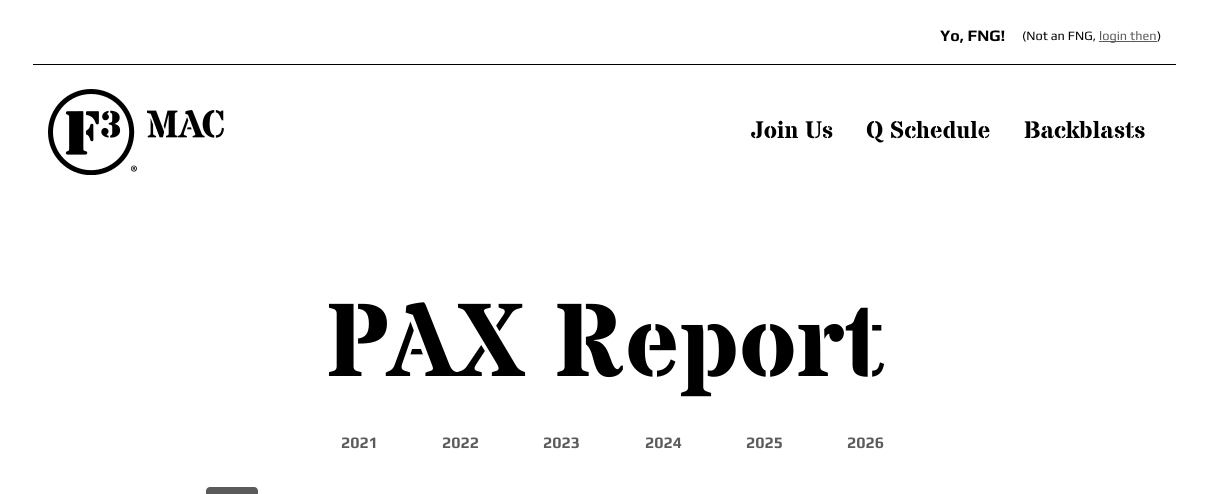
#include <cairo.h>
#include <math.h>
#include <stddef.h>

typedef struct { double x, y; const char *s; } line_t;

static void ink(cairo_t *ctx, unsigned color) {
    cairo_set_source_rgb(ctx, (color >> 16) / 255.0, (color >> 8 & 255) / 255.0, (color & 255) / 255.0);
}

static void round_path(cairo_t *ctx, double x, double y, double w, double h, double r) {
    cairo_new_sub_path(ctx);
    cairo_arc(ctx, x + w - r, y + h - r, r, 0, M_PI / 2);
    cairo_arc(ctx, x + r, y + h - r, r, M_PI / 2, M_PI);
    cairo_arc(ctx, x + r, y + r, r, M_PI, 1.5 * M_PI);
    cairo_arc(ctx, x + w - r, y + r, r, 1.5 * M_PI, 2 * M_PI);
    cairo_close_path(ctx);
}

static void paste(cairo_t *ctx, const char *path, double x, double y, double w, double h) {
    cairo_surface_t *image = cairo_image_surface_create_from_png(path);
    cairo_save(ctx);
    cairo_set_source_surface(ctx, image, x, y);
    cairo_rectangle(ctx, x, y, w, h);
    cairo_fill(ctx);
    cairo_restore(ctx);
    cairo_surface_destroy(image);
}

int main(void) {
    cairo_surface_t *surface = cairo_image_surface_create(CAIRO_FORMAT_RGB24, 1209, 494);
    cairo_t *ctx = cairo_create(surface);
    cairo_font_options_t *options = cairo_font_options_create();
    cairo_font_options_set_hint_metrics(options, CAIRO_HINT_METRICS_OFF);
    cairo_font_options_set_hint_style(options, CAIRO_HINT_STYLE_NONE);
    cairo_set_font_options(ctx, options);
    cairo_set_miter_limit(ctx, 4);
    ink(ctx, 0xFFFFFF);
    cairo_paint(ctx);
    ink(ctx, 0x000000);
    cairo_rectangle(ctx, 33, 64, 1143, 1);
    cairo_fill(ctx);
    cairo_select_font_face(ctx, "Play", CAIRO_FONT_SLANT_NORMAL, CAIRO_FONT_WEIGHT_BOLD);
    cairo_set_font_size(ctx, 16);
    cairo_move_to(ctx, 940, 41);
    cairo_show_text(ctx, "Yo, FNG!");
    cairo_select_font_face(ctx, "Play", CAIRO_FONT_SLANT_NORMAL, CAIRO_FONT_WEIGHT_NORMAL);
    cairo_set_font_size(ctx, 12.75);
    cairo_move_to(ctx, 1022, 40);
    cairo_show_text(ctx, "(Not an FNG,");
    ink(ctx, 0x5B5B5B);
    cairo_rectangle(ctx, 1099, 41, 58, 1);
    cairo_fill(ctx);
    cairo_move_to(ctx, 1099, 40);
    cairo_show_text(ctx, "login then");
    ink(ctx, 0x000000);
    cairo_move_to(ctx, 1157, 40);
    cairo_show_text(ctx, ")");
    paste(ctx, "media/1.png", 48, 89, 176, 86);
    cairo_select_font_face(ctx, "Stardos Stencil", CAIRO_FONT_SLANT_NORMAL, CAIRO_FONT_WEIGHT_BOLD);
    cairo_set_font_size(ctx, 24);
    {
        static const line_t items[] = {
            {751, 138, "Join Us"},
            {866, 138, "Q Schedule"},
            {1024, 138, "Backblasts"},
        };
        for (size_t i = 0; i < sizeof items / sizeof *items; i++) {
            cairo_move_to(ctx, items[i].x, items[i].y);
            cairo_show_text(ctx, items[i].s);
        }
    }
    cairo_set_font_size(ctx, 104);
    cairo_move_to(ctx, 325, 376);
    cairo_show_text(ctx, "PAX Report");
    cairo_select_font_face(ctx, "Play", CAIRO_FONT_SLANT_NORMAL, CAIRO_FONT_WEIGHT_BOLD);
    cairo_set_font_size(ctx, 16);
    ink(ctx, 0x5B5B5B);
    {
        static const line_t items[] = {
            {341, 448, "2021"},
            {442, 448, "2022"},
            {543, 448, "2023"},
            {645, 448, "2024"},
            {746, 448, "2025"},
            {847, 448, "2026"},
        };
        for (size_t i = 0; i < sizeof items / sizeof *items; i++) {
            cairo_move_to(ctx, items[i].x, items[i].y);
            cairo_show_text(ctx, items[i].s);
        }
    }
    round_path(ctx, 206, 487, 52, 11, 4);
    cairo_fill(ctx);
    cairo_surface_write_to_png(surface, "image.png");
    cairo_font_options_destroy(options);
    cairo_destroy(ctx);
    cairo_surface_destroy(surface);
    return 0;
}
